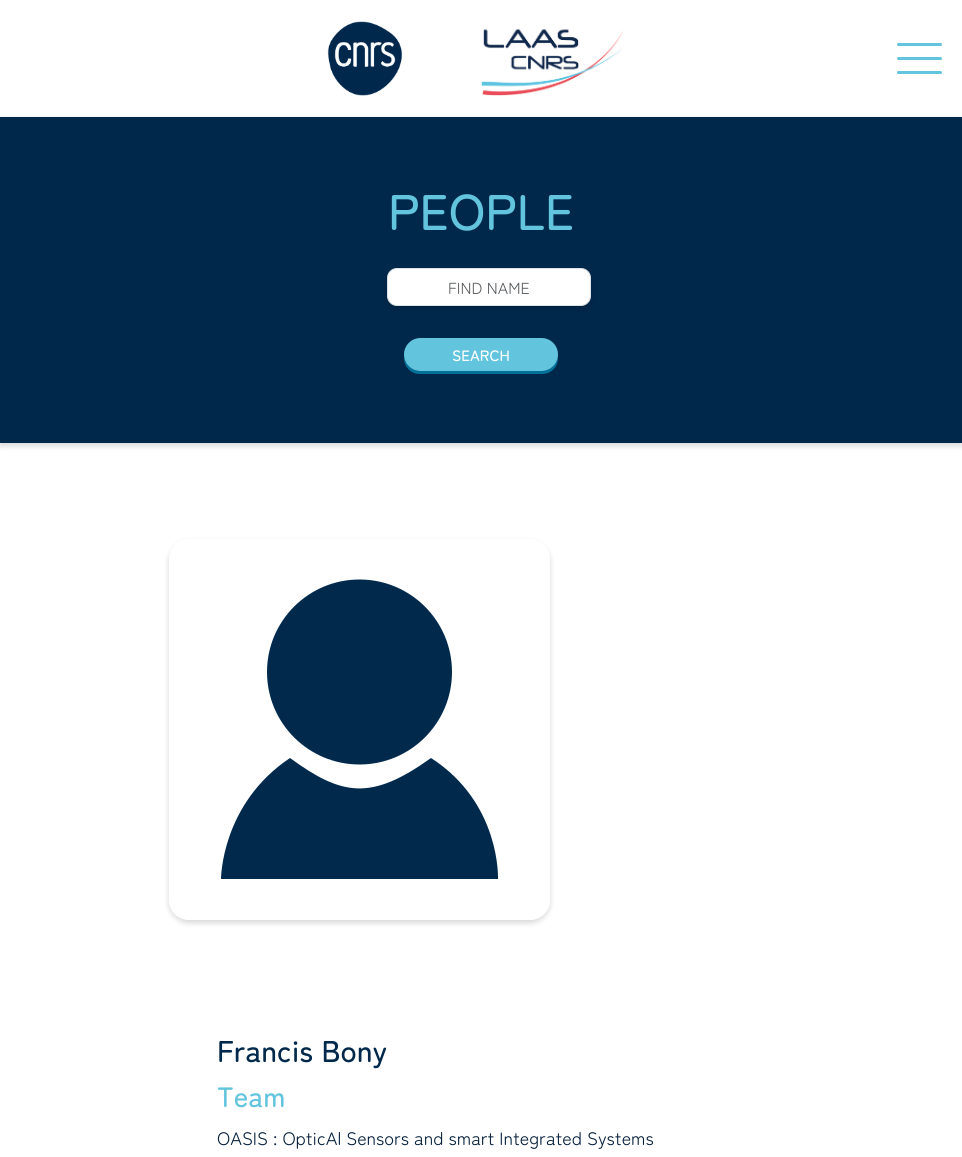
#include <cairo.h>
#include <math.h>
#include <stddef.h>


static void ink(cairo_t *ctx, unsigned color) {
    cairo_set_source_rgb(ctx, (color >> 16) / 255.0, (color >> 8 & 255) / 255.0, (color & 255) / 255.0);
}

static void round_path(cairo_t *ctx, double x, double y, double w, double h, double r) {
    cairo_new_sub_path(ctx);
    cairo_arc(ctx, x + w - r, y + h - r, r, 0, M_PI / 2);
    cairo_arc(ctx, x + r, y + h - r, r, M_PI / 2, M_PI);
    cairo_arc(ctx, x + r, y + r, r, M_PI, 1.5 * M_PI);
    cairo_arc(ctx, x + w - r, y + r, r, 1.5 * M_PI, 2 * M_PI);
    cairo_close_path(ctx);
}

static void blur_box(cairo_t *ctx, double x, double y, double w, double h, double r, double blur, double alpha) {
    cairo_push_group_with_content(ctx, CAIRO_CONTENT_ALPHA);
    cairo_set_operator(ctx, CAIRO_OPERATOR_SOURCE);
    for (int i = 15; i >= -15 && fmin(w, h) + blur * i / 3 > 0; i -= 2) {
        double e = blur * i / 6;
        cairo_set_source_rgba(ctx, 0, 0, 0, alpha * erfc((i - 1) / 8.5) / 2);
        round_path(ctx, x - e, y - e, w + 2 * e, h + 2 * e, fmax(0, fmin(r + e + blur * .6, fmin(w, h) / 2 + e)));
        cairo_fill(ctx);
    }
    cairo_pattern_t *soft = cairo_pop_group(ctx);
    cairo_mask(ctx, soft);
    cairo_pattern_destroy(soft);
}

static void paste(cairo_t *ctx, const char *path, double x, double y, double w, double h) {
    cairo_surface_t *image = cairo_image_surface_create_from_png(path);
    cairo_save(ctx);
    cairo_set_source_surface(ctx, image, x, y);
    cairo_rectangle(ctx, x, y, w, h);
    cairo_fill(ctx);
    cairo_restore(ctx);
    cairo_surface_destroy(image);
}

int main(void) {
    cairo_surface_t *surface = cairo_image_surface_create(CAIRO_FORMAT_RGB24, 962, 1157);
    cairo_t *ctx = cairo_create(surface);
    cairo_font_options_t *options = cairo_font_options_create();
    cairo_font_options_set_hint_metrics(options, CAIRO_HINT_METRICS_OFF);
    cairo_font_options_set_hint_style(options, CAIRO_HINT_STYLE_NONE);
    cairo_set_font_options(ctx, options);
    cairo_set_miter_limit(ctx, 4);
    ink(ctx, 0xFFFFFF);
    cairo_paint(ctx);
    paste(ctx, "media/1.png", 327, 21, 76, 75);
    paste(ctx, "media/2.png", 481, 28, 142, 68);
    cairo_new_path(ctx);
    cairo_move_to(ctx, 898.5, 58.5);
    cairo_line_to(ctx, 940.5, 58.5);
    cairo_move_to(ctx, 898.5, 44.5);
    cairo_line_to(ctx, 940.5, 44.5);
    cairo_move_to(ctx, 898.5, 72.5);
    cairo_line_to(ctx, 940.5, 72.5);
    ink(ctx, 0x62C4DD);
    cairo_set_line_width(ctx, 3);
    cairo_set_line_cap(ctx, CAIRO_LINE_CAP_ROUND);
    cairo_set_line_join(ctx, CAIRO_LINE_JOIN_ROUND);
    cairo_stroke(ctx);
    ink(ctx, 0x000000);
    blur_box(ctx, 0, 120, 962, 326, 0, 3, 0.16);
    ink(ctx, 0x00284B);
    cairo_rectangle(ctx, 0, 117, 962, 326);
    cairo_fill(ctx);
    cairo_select_font_face(ctx, "Zen Maru Gothic Medium", CAIRO_FONT_SLANT_NORMAL, CAIRO_FONT_WEIGHT_NORMAL);
    cairo_set_font_size(ctx, 50);
    ink(ctx, 0x62C4DD);
    cairo_move_to(ctx, 388, 230);
    cairo_show_text(ctx, "PEOPLE");
    ink(ctx, 0x000000);
    blur_box(ctx, 387, 271, 204, 38, 10, 3, 0.16);
    ink(ctx, 0xFFFFFF);
    round_path(ctx, 387.5, 268.5, 203, 37, 9.5);
    cairo_fill_preserve(ctx);
    ink(ctx, 0xDEE2E6);
    cairo_set_line_width(ctx, 1);
    cairo_set_line_cap(ctx, CAIRO_LINE_CAP_BUTT);
    cairo_set_line_join(ctx, CAIRO_LINE_JOIN_MITER);
    cairo_stroke(ctx);
    cairo_select_font_face(ctx, "Zen Maru Gothic", CAIRO_FONT_SLANT_NORMAL, CAIRO_FONT_WEIGHT_NORMAL);
    cairo_set_font_size(ctx, 16);
    ink(ctx, 0x595C5F);
    cairo_move_to(ctx, 448, 294);
    cairo_show_text(ctx, "FIND NAME");
    ink(ctx, 0x007299);
    cairo_new_path(ctx);
    cairo_move_to(ctx, 404, 356);
    cairo_line_to(ctx, 404, 358);
    cairo_curve_to(ctx, 404, 367, 411, 374, 420, 374);
    cairo_line_to(ctx, 542, 374);
    cairo_curve_to(ctx, 551, 374, 558, 367, 558, 358);
    cairo_line_to(ctx, 558, 356);
    cairo_curve_to(ctx, 557, 364, 550, 371, 542, 371);
    cairo_line_to(ctx, 420, 371);
    cairo_curve_to(ctx, 412, 371, 405, 364, 404, 356);
    cairo_close_path(ctx);
    cairo_fill(ctx);
    ink(ctx, 0x62C4DD);
    round_path(ctx, 404, 338, 154, 33, 16.5);
    cairo_fill(ctx);
    cairo_select_font_face(ctx, "Zen Maru Gothic Medium", CAIRO_FONT_SLANT_NORMAL, CAIRO_FONT_WEIGHT_NORMAL);
    cairo_set_font_size(ctx, 15);
    ink(ctx, 0xFFFFFF);
    cairo_move_to(ctx, 452, 361);
    cairo_show_text(ctx, "SEARCH");
    cairo_save(ctx);
    cairo_set_fill_rule(ctx, CAIRO_FILL_RULE_EVEN_ODD);
    cairo_new_path(ctx);
    cairo_move_to(ctx, 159, 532);
    cairo_line_to(ctx, 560, 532);
    cairo_line_to(ctx, 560, 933);
    cairo_line_to(ctx, 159, 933);
    cairo_close_path(ctx);
    cairo_move_to(ctx, 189, 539);
    cairo_line_to(ctx, 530, 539);
    cairo_curve_to(ctx, 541, 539, 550, 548, 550, 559);
    cairo_line_to(ctx, 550, 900);
    cairo_curve_to(ctx, 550, 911, 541, 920, 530, 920);
    cairo_line_to(ctx, 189, 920);
    cairo_curve_to(ctx, 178, 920, 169, 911, 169, 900);
    cairo_line_to(ctx, 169, 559);
    cairo_curve_to(ctx, 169, 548, 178, 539, 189, 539);
    cairo_close_path(ctx);
    cairo_clip(ctx);
    ink(ctx, 0x000000);
    blur_box(ctx, 169, 542, 381, 381, 20, 3, 0.16);
    cairo_restore(ctx);
    ink(ctx, 0x00294B);
    cairo_new_path(ctx);
    cairo_move_to(ctx, 221, 879);
    cairo_line_to(ctx, 498, 879);
    cairo_curve_to(ctx, 498, 879, 501, 803, 431, 758);
    cairo_curve_to(ctx, 371, 801, 342, 796, 290, 758);
    cairo_curve_to(ctx, 221, 804, 221, 879, 221, 879);
    cairo_close_path(ctx);
    cairo_fill(ctx);
    cairo_arc(ctx, 359.5, 672, 92.5, 0, 2 * M_PI);
    cairo_fill(ctx);
    cairo_set_font_size(ctx, 30);
    ink(ctx, 0x00284B);
    cairo_move_to(ctx, 217, 1062);
    cairo_show_text(ctx, "Francis Bony");
    cairo_set_font_size(ctx, 28);
    ink(ctx, 0x62C4DD);
    cairo_move_to(ctx, 217, 1107);
    cairo_show_text(ctx, "Team");
    cairo_select_font_face(ctx, "Zen Maru Gothic", CAIRO_FONT_SLANT_NORMAL, CAIRO_FONT_WEIGHT_NORMAL);
    cairo_set_font_size(ctx, 18);
    ink(ctx, 0x051F3B);
    cairo_move_to(ctx, 217, 1145);
    cairo_show_text(ctx, "OASIS : OpticAl Sensors and smart Integrated Systems");
    cairo_surface_write_to_png(surface, "image.png");
    cairo_font_options_destroy(options);
    cairo_destroy(ctx);
    cairo_surface_destroy(surface);
    return 0;
}
